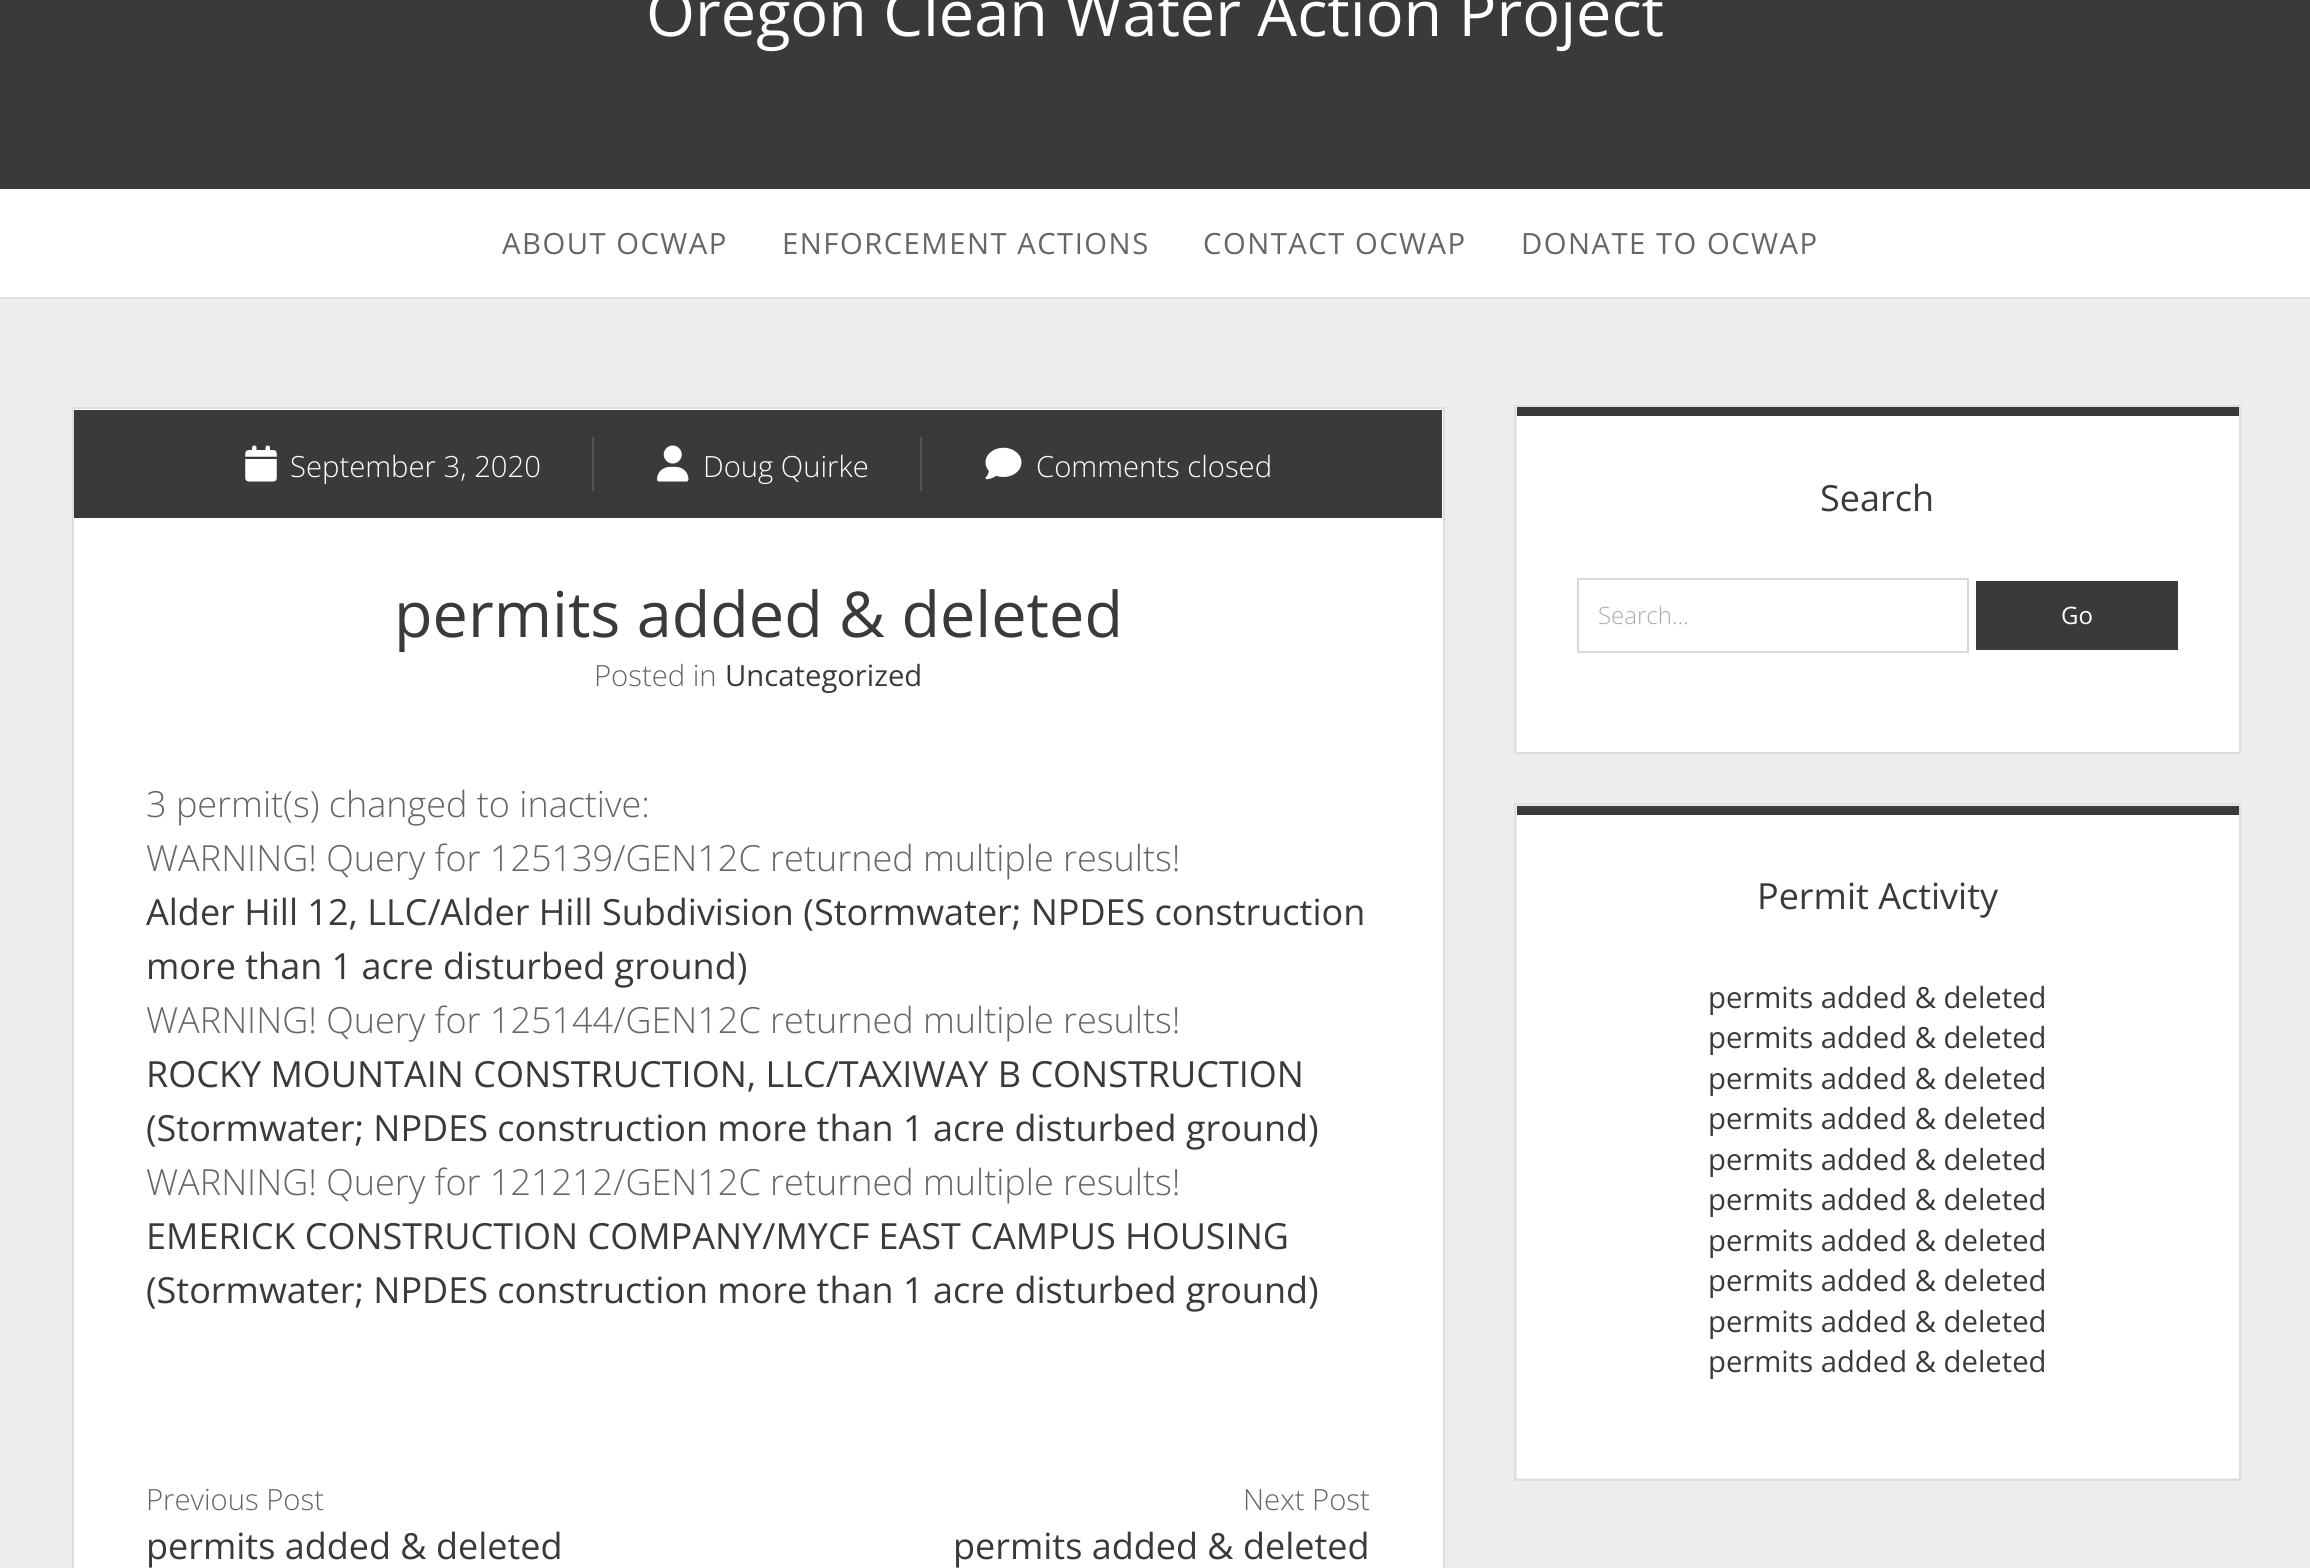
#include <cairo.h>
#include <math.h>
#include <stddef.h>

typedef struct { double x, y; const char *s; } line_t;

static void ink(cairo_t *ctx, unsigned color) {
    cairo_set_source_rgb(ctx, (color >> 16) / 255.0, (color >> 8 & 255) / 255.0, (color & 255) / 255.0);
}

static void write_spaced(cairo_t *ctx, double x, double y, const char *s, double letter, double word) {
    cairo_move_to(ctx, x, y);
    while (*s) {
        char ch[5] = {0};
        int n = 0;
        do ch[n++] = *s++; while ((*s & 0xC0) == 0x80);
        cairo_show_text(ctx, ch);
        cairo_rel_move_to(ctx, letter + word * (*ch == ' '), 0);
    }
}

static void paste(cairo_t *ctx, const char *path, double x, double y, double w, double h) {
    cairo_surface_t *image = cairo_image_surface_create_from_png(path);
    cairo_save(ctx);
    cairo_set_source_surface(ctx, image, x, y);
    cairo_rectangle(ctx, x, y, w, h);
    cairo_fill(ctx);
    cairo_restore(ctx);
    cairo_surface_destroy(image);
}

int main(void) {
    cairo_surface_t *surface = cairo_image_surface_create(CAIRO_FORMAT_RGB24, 2310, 1568);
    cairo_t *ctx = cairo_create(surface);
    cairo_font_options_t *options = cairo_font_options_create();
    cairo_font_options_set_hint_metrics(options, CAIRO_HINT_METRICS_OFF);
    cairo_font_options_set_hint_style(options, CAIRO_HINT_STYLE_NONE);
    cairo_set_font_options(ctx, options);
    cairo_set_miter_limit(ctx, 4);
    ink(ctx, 0xEDEDED);
    cairo_paint(ctx);
    ink(ctx, 0x3A3A3A);
    cairo_rectangle(ctx, 0, 0, 2310, 189);
    cairo_fill(ctx);
    cairo_select_font_face(ctx, "Open Sans", CAIRO_FONT_SLANT_NORMAL, CAIRO_FONT_WEIGHT_NORMAL);
    cairo_set_font_size(ctx, 63);
    ink(ctx, 0xFFFFFF);
    cairo_move_to(ctx, 646, 36);
    cairo_show_text(ctx, "Oregon Clean Water Action Project");
    cairo_rectangle(ctx, 0, 189, 2310, 108);
    cairo_fill(ctx);
    ink(ctx, 0xDEDEDE);
    cairo_rectangle(ctx, 0, 297, 2310, 2);
    cairo_fill(ctx);
    cairo_set_font_size(ctx, 29.25);
    ink(ctx, 0x666666);
    {
        static const line_t items[] = {
            {502, 254, "ABOUT OCWAP"},
            {782, 254, "ENFORCEMENT ACTIONS"},
            {1203, 254, "CONTACT OCWAP"},
            {1521, 254, "DONATE TO OCWAP"},
        };
        for (size_t i = 0; i < sizeof items / sizeof *items; i++) {
            write_spaced(ctx, items[i].x, items[i].y, items[i].s, 1.5, 0);
        }
    }
    ink(ctx, 0xFFFFFF);
    cairo_rectangle(ctx, 73, 408, 1371, 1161);
    cairo_fill_preserve(ctx);
    ink(ctx, 0xDEDEDE);
    cairo_stroke(ctx);
    ink(ctx, 0x3A3A3A);
    cairo_rectangle(ctx, 74, 410, 1368, 108);
    cairo_fill(ctx);
    paste(ctx, "media/1.png", 245, 445, 32, 37);
    cairo_select_font_face(ctx, "Open Sans Light", CAIRO_FONT_SLANT_NORMAL, CAIRO_FONT_WEIGHT_NORMAL);
    ink(ctx, 0xFFFFFF);
    cairo_move_to(ctx, 290, 477);
    cairo_show_text(ctx, "September 3, 2020");
    ink(ctx, 0x545454);
    cairo_rectangle(ctx, 592, 437, 2, 54);
    cairo_fill(ctx);
    paste(ctx, "media/2.png", 657, 445, 32, 37);
    ink(ctx, 0xFFFFFF);
    cairo_move_to(ctx, 703, 477);
    cairo_show_text(ctx, "Doug Quirke");
    ink(ctx, 0x545454);
    cairo_rectangle(ctx, 920, 437, 2, 54);
    cairo_fill(ctx);
    paste(ctx, "media/3.png", 985, 447, 37, 33);
    ink(ctx, 0xFFFFFF);
    cairo_move_to(ctx, 1036, 477);
    cairo_show_text(ctx, "Comments closed");
    cairo_select_font_face(ctx, "Open Sans", CAIRO_FONT_SLANT_NORMAL, CAIRO_FONT_WEIGHT_NORMAL);
    cairo_set_font_size(ctx, 63);
    ink(ctx, 0x3A3A3A);
    cairo_move_to(ctx, 394, 637);
    cairo_show_text(ctx, "permits added & deleted");
    cairo_select_font_face(ctx, "Open Sans Light", CAIRO_FONT_SLANT_NORMAL, CAIRO_FONT_WEIGHT_NORMAL);
    cairo_set_font_size(ctx, 29.25);
    ink(ctx, 0x666666);
    cairo_move_to(ctx, 594, 686);
    cairo_show_text(ctx, "Posted in");
    cairo_select_font_face(ctx, "Open Sans", CAIRO_FONT_SLANT_NORMAL, CAIRO_FONT_WEIGHT_NORMAL);
    ink(ctx, 0x3A3A3A);
    cairo_move_to(ctx, 725, 686);
    cairo_show_text(ctx, "Uncategorized");
    cairo_select_font_face(ctx, "Open Sans Light", CAIRO_FONT_SLANT_NORMAL, CAIRO_FONT_WEIGHT_NORMAL);
    cairo_set_font_size(ctx, 36);
    ink(ctx, 0x666666);
    cairo_move_to(ctx, 146, 817);
    cairo_show_text(ctx, "3 permit(s) changed to inactive:");
    cairo_move_to(ctx, 146, 871);
    cairo_show_text(ctx, "WARNING! Query for 125139/GEN12C returned multiple results!");
    cairo_select_font_face(ctx, "Open Sans", CAIRO_FONT_SLANT_NORMAL, CAIRO_FONT_WEIGHT_NORMAL);
    ink(ctx, 0x3A3A3A);
    cairo_move_to(ctx, 146, 925);
    cairo_show_text(ctx, "Alder Hill 12, LLC/Alder Hill Subdivision (Stormwater; NPDES construction");
    cairo_move_to(ctx, 146, 979);
    cairo_show_text(ctx, "more than 1 acre disturbed ground)");
    cairo_select_font_face(ctx, "Open Sans Light", CAIRO_FONT_SLANT_NORMAL, CAIRO_FONT_WEIGHT_NORMAL);
    ink(ctx, 0x666666);
    cairo_move_to(ctx, 146, 1033);
    cairo_show_text(ctx, "WARNING! Query for 125144/GEN12C returned multiple results!");
    cairo_select_font_face(ctx, "Open Sans", CAIRO_FONT_SLANT_NORMAL, CAIRO_FONT_WEIGHT_NORMAL);
    ink(ctx, 0x3A3A3A);
    cairo_move_to(ctx, 146, 1087);
    cairo_show_text(ctx, "ROCKY MOUNTAIN CONSTRUCTION, LLC/TAXIWAY B CONSTRUCTION");
    cairo_move_to(ctx, 146, 1141);
    cairo_show_text(ctx, "(Stormwater; NPDES construction more than 1 acre disturbed ground)");
    cairo_select_font_face(ctx, "Open Sans Light", CAIRO_FONT_SLANT_NORMAL, CAIRO_FONT_WEIGHT_NORMAL);
    ink(ctx, 0x666666);
    cairo_move_to(ctx, 146, 1195);
    cairo_show_text(ctx, "WARNING! Query for 121212/GEN12C returned multiple results!");
    cairo_select_font_face(ctx, "Open Sans", CAIRO_FONT_SLANT_NORMAL, CAIRO_FONT_WEIGHT_NORMAL);
    ink(ctx, 0x3A3A3A);
    cairo_move_to(ctx, 146, 1249);
    cairo_show_text(ctx, "EMERICK CONSTRUCTION COMPANY/MYCF EAST CAMPUS HOUSING");
    cairo_move_to(ctx, 146, 1303);
    cairo_show_text(ctx, "(Stormwater; NPDES construction more than 1 acre disturbed ground)");
    cairo_select_font_face(ctx, "Open Sans Light", CAIRO_FONT_SLANT_NORMAL, CAIRO_FONT_WEIGHT_NORMAL);
    cairo_set_font_size(ctx, 29.25);
    ink(ctx, 0x666666);
    cairo_move_to(ctx, 146, 1510);
    cairo_show_text(ctx, "Previous Post");
    cairo_select_font_face(ctx, "Open Sans", CAIRO_FONT_SLANT_NORMAL, CAIRO_FONT_WEIGHT_NORMAL);
    cairo_set_font_size(ctx, 36);
    ink(ctx, 0x3A3A3A);
    cairo_move_to(ctx, 146, 1559);
    cairo_show_text(ctx, "permits added & deleted");
    cairo_select_font_face(ctx, "Open Sans Light", CAIRO_FONT_SLANT_NORMAL, CAIRO_FONT_WEIGHT_NORMAL);
    cairo_set_font_size(ctx, 29.25);
    ink(ctx, 0x666666);
    cairo_move_to(ctx, 1243, 1510);
    cairo_show_text(ctx, "Next Post");
    cairo_select_font_face(ctx, "Open Sans", CAIRO_FONT_SLANT_NORMAL, CAIRO_FONT_WEIGHT_NORMAL);
    cairo_set_font_size(ctx, 36);
    ink(ctx, 0x3A3A3A);
    cairo_move_to(ctx, 953, 1559);
    cairo_show_text(ctx, "permits added & deleted");
    ink(ctx, 0xFFFFFF);
    cairo_rectangle(ctx, 1517, 416, 722, 336);
    cairo_fill(ctx);
    ink(ctx, 0x3A3A3A);
    cairo_rectangle(ctx, 1517, 407, 722, 9);
    cairo_fill(ctx);
    cairo_rectangle(ctx, 1578, 579, 390, 73);
    ink(ctx, 0xD9D9D9);
    cairo_stroke(ctx);
    cairo_rectangle(ctx, 1515, 406, 725, 347);
    ink(ctx, 0xDEDEDE);
    cairo_stroke(ctx);
    ink(ctx, 0x3A3A3A);
    cairo_move_to(ctx, 1820, 511);
    cairo_show_text(ctx, "Search");
    cairo_select_font_face(ctx, "Open Sans Light", CAIRO_FONT_SLANT_NORMAL, CAIRO_FONT_WEIGHT_NORMAL);
    cairo_set_font_size(ctx, 24);
    ink(ctx, 0xABABAB);
    cairo_move_to(ctx, 1598, 624);
    cairo_show_text(ctx, "Search...");
    ink(ctx, 0x3A3A3A);
    cairo_rectangle(ctx, 1976, 581, 202, 69);
    cairo_fill(ctx);
    cairo_select_font_face(ctx, "Open Sans", CAIRO_FONT_SLANT_NORMAL, CAIRO_FONT_WEIGHT_NORMAL);
    ink(ctx, 0xFFFFFF);
    cairo_move_to(ctx, 2061, 624);
    cairo_show_text(ctx, "Go");
    cairo_rectangle(ctx, 1517, 815, 722, 663);
    cairo_fill(ctx);
    ink(ctx, 0x3A3A3A);
    cairo_rectangle(ctx, 1517, 806, 722, 9);
    cairo_fill(ctx);
    cairo_rectangle(ctx, 1515, 804, 725, 676);
    ink(ctx, 0xDEDEDE);
    cairo_stroke(ctx);
    cairo_set_font_size(ctx, 36);
    ink(ctx, 0x3A3A3A);
    cairo_move_to(ctx, 1757, 909);
    cairo_show_text(ctx, "Permit Activity");
    cairo_set_font_size(ctx, 29.25);
    {
        static const line_t items[] = {
            {1708, 1008, "permits added & deleted"},
            {1708, 1048, "permits added & deleted"},
            {1708, 1089, "permits added & deleted"},
            {1708, 1129, "permits added & deleted"},
            {1708, 1170, "permits added & deleted"},
            {1708, 1210, "permits added & deleted"},
            {1708, 1251, "permits added & deleted"},
            {1708, 1291, "permits added & deleted"},
            {1708, 1332, "permits added & deleted"},
            {1708, 1372, "permits added & deleted"},
        };
        for (size_t i = 0; i < sizeof items / sizeof *items; i++) {
            cairo_move_to(ctx, items[i].x, items[i].y);
            cairo_show_text(ctx, items[i].s);
        }
    }
    cairo_surface_write_to_png(surface, "image.png");
    cairo_font_options_destroy(options);
    cairo_destroy(ctx);
    cairo_surface_destroy(surface);
    return 0;
}
